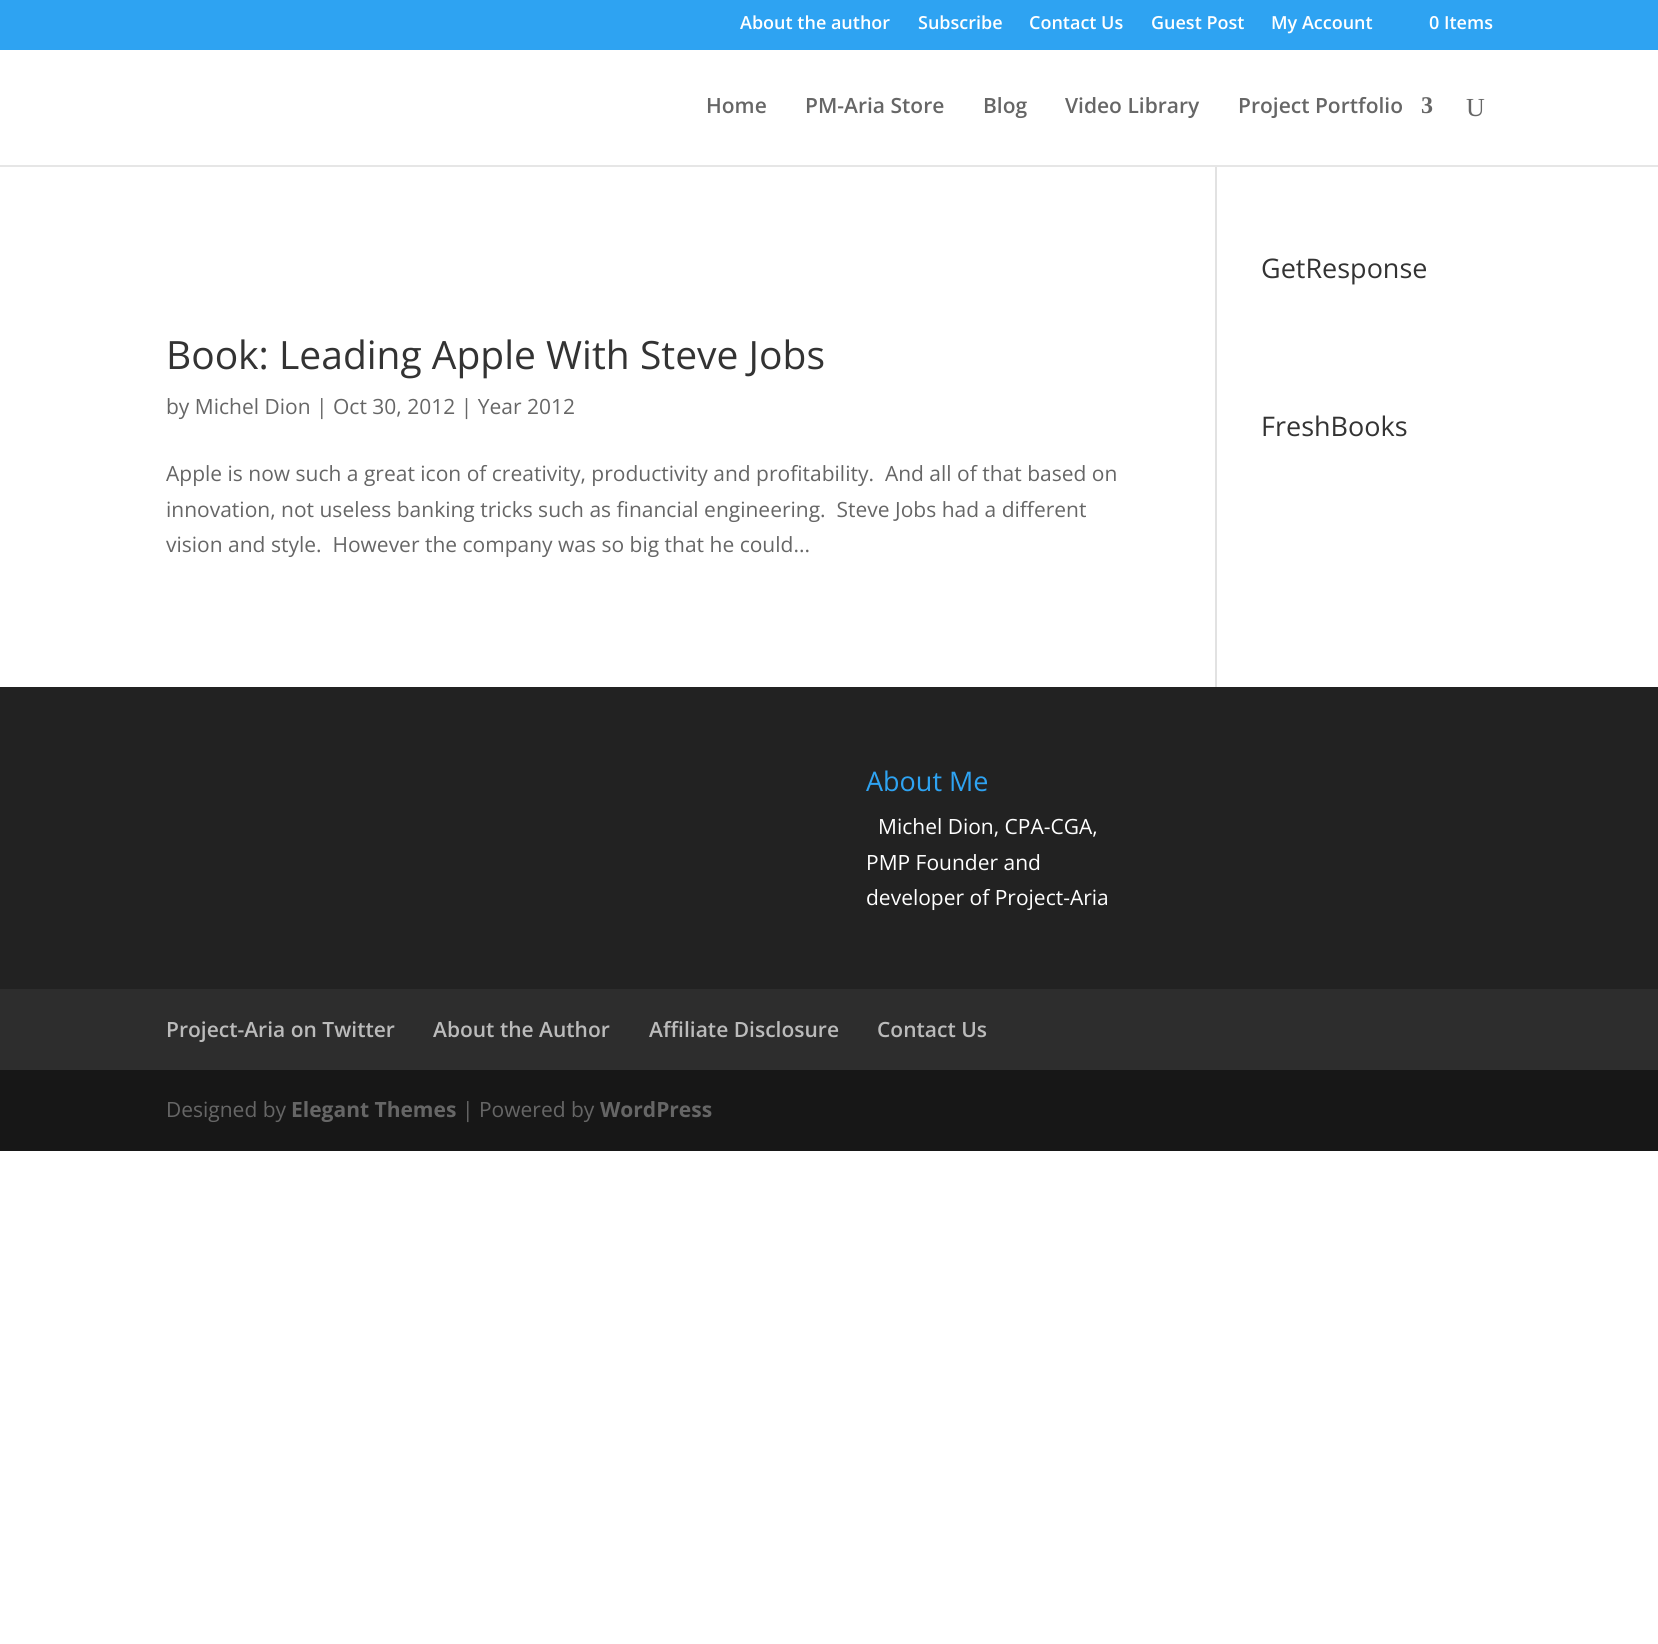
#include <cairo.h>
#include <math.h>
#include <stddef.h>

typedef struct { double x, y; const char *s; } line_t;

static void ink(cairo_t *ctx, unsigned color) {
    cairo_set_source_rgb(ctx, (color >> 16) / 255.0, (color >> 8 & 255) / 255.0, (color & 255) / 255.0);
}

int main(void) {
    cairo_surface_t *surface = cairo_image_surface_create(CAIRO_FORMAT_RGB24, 1658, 1644);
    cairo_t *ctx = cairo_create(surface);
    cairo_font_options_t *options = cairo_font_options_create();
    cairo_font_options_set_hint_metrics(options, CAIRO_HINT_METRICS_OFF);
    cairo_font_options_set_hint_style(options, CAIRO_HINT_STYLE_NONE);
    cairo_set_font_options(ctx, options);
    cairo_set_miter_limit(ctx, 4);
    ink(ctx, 0xFFFFFF);
    cairo_paint(ctx);
    ink(ctx, 0x2EA3F2);
    cairo_rectangle(ctx, 0, 0, 1658, 50);
    cairo_fill(ctx);
    cairo_select_font_face(ctx, "Open Sans SemiBold", CAIRO_FONT_SLANT_NORMAL, CAIRO_FONT_WEIGHT_NORMAL);
    cairo_set_font_size(ctx, 18);
    ink(ctx, 0xFFFFFF);
    {
        static const line_t items[] = {
            {740, 29, "About the author"},
            {918, 29, "Subscribe"},
            {1029, 29, "Contact Us"},
            {1151, 29, "Guest Post"},
            {1271, 29, "My Account"},
            {1429, 29, "0 Items"},
        };
        for (size_t i = 0; i < sizeof items / sizeof *items; i++) {
            cairo_move_to(ctx, items[i].x, items[i].y);
            cairo_show_text(ctx, items[i].s);
        }
    }
    ink(ctx, 0xE6E6E6);
    cairo_rectangle(ctx, 0, 165, 1658, 2);
    cairo_fill(ctx);
    cairo_set_font_size(ctx, 21);
    ink(ctx, 0x666666);
    {
        static const line_t items[] = {
            {706, 113, "Home"},
            {805, 113, "PM-Aria Store"},
            {983, 113, "Blog"},
            {1065, 113, "Video Library"},
            {1238, 113, "Project Portfolio"},
        };
        for (size_t i = 0; i < sizeof items / sizeof *items; i++) {
            cairo_move_to(ctx, items[i].x, items[i].y);
            cairo_show_text(ctx, items[i].s);
        }
    }
    cairo_select_font_face(ctx, "Liberation Serif", CAIRO_FONT_SLANT_NORMAL, CAIRO_FONT_WEIGHT_BOLD);
    cairo_set_font_size(ctx, 24);
    cairo_move_to(ctx, 1421, 113);
    cairo_show_text(ctx, "3");
    cairo_select_font_face(ctx, "Liberation Serif", CAIRO_FONT_SLANT_NORMAL, CAIRO_FONT_WEIGHT_NORMAL);
    cairo_set_font_size(ctx, 26);
    cairo_move_to(ctx, 1466, 116);
    cairo_show_text(ctx, "U");
    ink(ctx, 0xE2E2E2);
    cairo_rectangle(ctx, 1215, 167, 2, 520);
    cairo_fill(ctx);
    cairo_select_font_face(ctx, "Open Sans", CAIRO_FONT_SLANT_NORMAL, CAIRO_FONT_WEIGHT_NORMAL);
    cairo_set_font_size(ctx, 39);
    ink(ctx, 0x333333);
    cairo_move_to(ctx, 166, 369);
    cairo_show_text(ctx, "Book: Leading Apple With Steve Jobs");
    cairo_set_font_size(ctx, 21);
    ink(ctx, 0x666666);
    {
        static const line_t items[] = {
            {166, 414, "by Michel Dion | Oct 30, 2012 | Year 2012"},
            {166, 481, "Apple is now such a great icon of creativity, productivity and profitability.  And all of that based on"},
            {166, 517, "innovation, not useless banking tricks such as financial engineering.  Steve Jobs had a different"},
            {166, 552, "vision and style.  However the company was so big that he could..."},
        };
        for (size_t i = 0; i < sizeof items / sizeof *items; i++) {
            cairo_move_to(ctx, items[i].x, items[i].y);
            cairo_show_text(ctx, items[i].s);
        }
    }
    cairo_set_font_size(ctx, 27);
    ink(ctx, 0x333333);
    cairo_move_to(ctx, 1261, 278);
    cairo_show_text(ctx, "GetResponse");
    cairo_move_to(ctx, 1261, 436);
    cairo_show_text(ctx, "FreshBooks");
    ink(ctx, 0x222222);
    cairo_rectangle(ctx, 0, 687, 1658, 302);
    cairo_fill(ctx);
    ink(ctx, 0x2EA3F2);
    cairo_move_to(ctx, 866, 791);
    cairo_show_text(ctx, "About Me");
    cairo_set_font_size(ctx, 21);
    ink(ctx, 0xFFFFFF);
    {
        static const line_t items[] = {
            {878, 834, "Michel Dion, CPA-CGA,"},
            {866, 870, "PMP Founder and"},
            {866, 905, "developer of Project-Aria"},
        };
        for (size_t i = 0; i < sizeof items / sizeof *items; i++) {
            cairo_move_to(ctx, items[i].x, items[i].y);
            cairo_show_text(ctx, items[i].s);
        }
    }
    ink(ctx, 0x2D2D2D);
    cairo_rectangle(ctx, 0, 989, 1658, 81);
    cairo_fill(ctx);
    cairo_select_font_face(ctx, "Open Sans SemiBold", CAIRO_FONT_SLANT_NORMAL, CAIRO_FONT_WEIGHT_NORMAL);
    ink(ctx, 0xBBBBBB);
    {
        static const line_t items[] = {
            {166, 1037, "Project-Aria on Twitter"},
            {433, 1037, "About the Author"},
            {649, 1037, "Affiliate Disclosure"},
            {877, 1037, "Contact Us"},
        };
        for (size_t i = 0; i < sizeof items / sizeof *items; i++) {
            cairo_move_to(ctx, items[i].x, items[i].y);
            cairo_show_text(ctx, items[i].s);
        }
    }
    ink(ctx, 0x171717);
    cairo_rectangle(ctx, 0, 1070, 1658, 81);
    cairo_fill(ctx);
    cairo_select_font_face(ctx, "Open Sans", CAIRO_FONT_SLANT_NORMAL, CAIRO_FONT_WEIGHT_NORMAL);
    ink(ctx, 0x666666);
    cairo_move_to(ctx, 166, 1117);
    cairo_show_text(ctx, "Designed by");
    cairo_select_font_face(ctx, "Open Sans", CAIRO_FONT_SLANT_NORMAL, CAIRO_FONT_WEIGHT_BOLD);
    cairo_move_to(ctx, 291, 1117);
    cairo_show_text(ctx, "Elegant Themes");
    cairo_select_font_face(ctx, "Open Sans", CAIRO_FONT_SLANT_NORMAL, CAIRO_FONT_WEIGHT_NORMAL);
    cairo_move_to(ctx, 462, 1117);
    cairo_show_text(ctx, "| Powered by");
    cairo_select_font_face(ctx, "Open Sans", CAIRO_FONT_SLANT_NORMAL, CAIRO_FONT_WEIGHT_BOLD);
    cairo_move_to(ctx, 600, 1117);
    cairo_show_text(ctx, "WordPress");
    cairo_surface_write_to_png(surface, "image.png");
    cairo_font_options_destroy(options);
    cairo_destroy(ctx);
    cairo_surface_destroy(surface);
    return 0;
}
